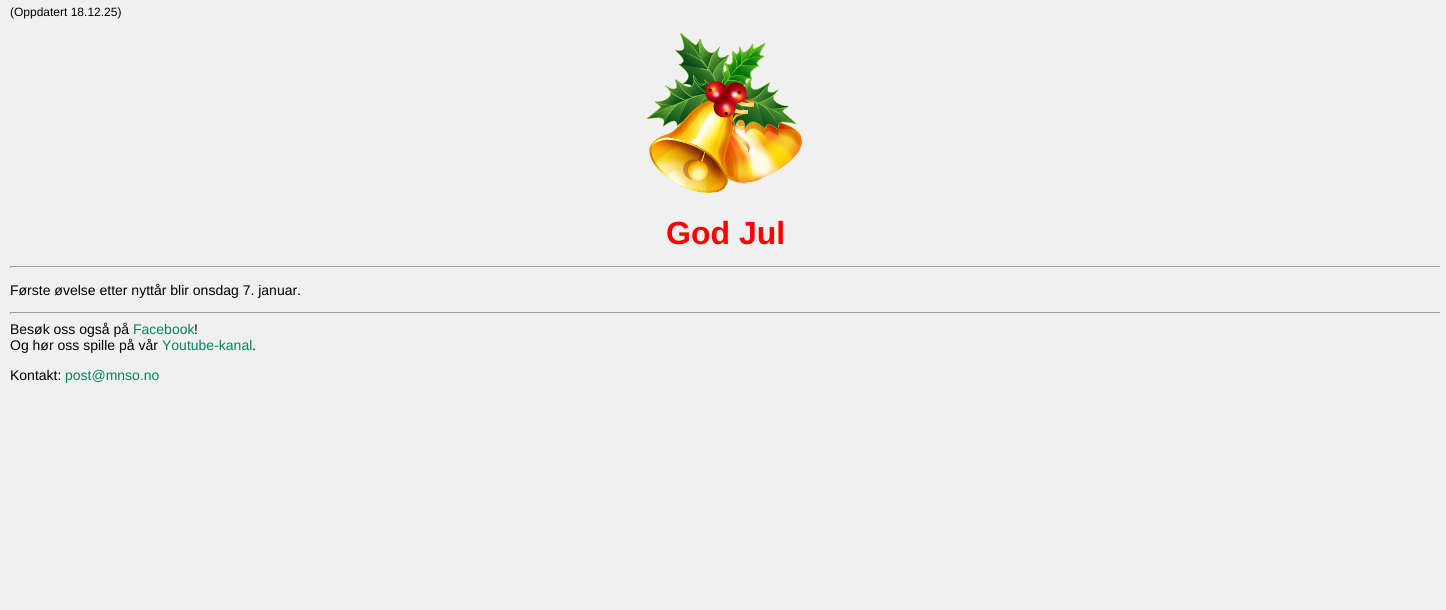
#include <cairo.h>
#include <math.h>
#include <stddef.h>

typedef struct { double x, y, w, h; unsigned color; } box_t;

static void ink(cairo_t *ctx, unsigned color) {
    cairo_set_source_rgb(ctx, (color >> 16) / 255.0, (color >> 8 & 255) / 255.0, (color & 255) / 255.0);
}

static void paste(cairo_t *ctx, const char *path, double x, double y, double w, double h) {
    cairo_surface_t *image = cairo_image_surface_create_from_png(path);
    cairo_save(ctx);
    cairo_set_source_surface(ctx, image, x, y);
    cairo_rectangle(ctx, x, y, w, h);
    cairo_fill(ctx);
    cairo_restore(ctx);
    cairo_surface_destroy(image);
}

int main(void) {
    cairo_surface_t *surface = cairo_image_surface_create(CAIRO_FORMAT_RGB24, 1446, 610);
    cairo_t *ctx = cairo_create(surface);
    cairo_font_options_t *options = cairo_font_options_create();
    cairo_font_options_set_hint_metrics(options, CAIRO_HINT_METRICS_OFF);
    cairo_font_options_set_hint_style(options, CAIRO_HINT_STYLE_NONE);
    cairo_set_font_options(ctx, options);
    cairo_set_miter_limit(ctx, 4);
    ink(ctx, 0xF0F0F0);
    cairo_paint(ctx);
    cairo_select_font_face(ctx, "Liberation Sans", CAIRO_FONT_SLANT_NORMAL, CAIRO_FONT_WEIGHT_NORMAL);
    cairo_set_font_size(ctx, 12);
    ink(ctx, 0x000000);
    cairo_move_to(ctx, 10, 16);
    cairo_show_text(ctx, "(Oppdatert 18.12.25)");
    paste(ctx, "media/1.png", 646, 33, 156, 160);
    cairo_select_font_face(ctx, "Liberation Sans", CAIRO_FONT_SLANT_NORMAL, CAIRO_FONT_WEIGHT_BOLD);
    cairo_set_font_size(ctx, 32);
    ink(ctx, 0xFF0000);
    cairo_move_to(ctx, 666, 244);
    cairo_show_text(ctx, "God Jul");
    {
        static const box_t items[] = {
            {10, 266, 1431, 1, 0x9F9F9F},
            {1440, 266, 1, 2, 0xEEEEEE},
            {10, 266, 1, 2, 0x9F9F9F},
        };
        for (size_t i = 0; i < sizeof items / sizeof *items; i++) {
            ink(ctx, items[i].color);
            cairo_rectangle(ctx, items[i].x, items[i].y, items[i].w, items[i].h);
            cairo_fill(ctx);
        }
    }
    cairo_select_font_face(ctx, "Liberation Sans", CAIRO_FONT_SLANT_NORMAL, CAIRO_FONT_WEIGHT_NORMAL);
    cairo_set_font_size(ctx, 14);
    ink(ctx, 0x000000);
    cairo_move_to(ctx, 10, 295);
    cairo_show_text(ctx, "Første øvelse etter nyttår blir onsdag 7. januar.");
    {
        static const box_t items[] = {
            {10, 312, 1431, 1, 0x9F9F9F},
            {1440, 312, 1, 2, 0xEEEEEE},
            {10, 312, 1, 2, 0x9F9F9F},
        };
        for (size_t i = 0; i < sizeof items / sizeof *items; i++) {
            ink(ctx, items[i].color);
            cairo_rectangle(ctx, items[i].x, items[i].y, items[i].w, items[i].h);
            cairo_fill(ctx);
        }
    }
    ink(ctx, 0x000000);
    cairo_move_to(ctx, 10, 334);
    cairo_show_text(ctx, "Besøk oss også på");
    ink(ctx, 0x008656);
    cairo_move_to(ctx, 133, 334);
    cairo_show_text(ctx, "Facebook");
    ink(ctx, 0x000000);
    cairo_move_to(ctx, 194, 334);
    cairo_show_text(ctx, "!");
    cairo_move_to(ctx, 10, 350);
    cairo_show_text(ctx, "Og hør oss spille på vår");
    ink(ctx, 0x008656);
    cairo_move_to(ctx, 162, 350);
    cairo_show_text(ctx, "Youtube-kanal");
    ink(ctx, 0x000000);
    cairo_move_to(ctx, 252, 350);
    cairo_show_text(ctx, ".");
    cairo_move_to(ctx, 10, 380);
    cairo_show_text(ctx, "Kontakt:");
    ink(ctx, 0x008656);
    cairo_move_to(ctx, 65, 380);
    cairo_show_text(ctx, "post@mnso.no");
    cairo_surface_write_to_png(surface, "image.png");
    cairo_font_options_destroy(options);
    cairo_destroy(ctx);
    cairo_surface_destroy(surface);
    return 0;
}
